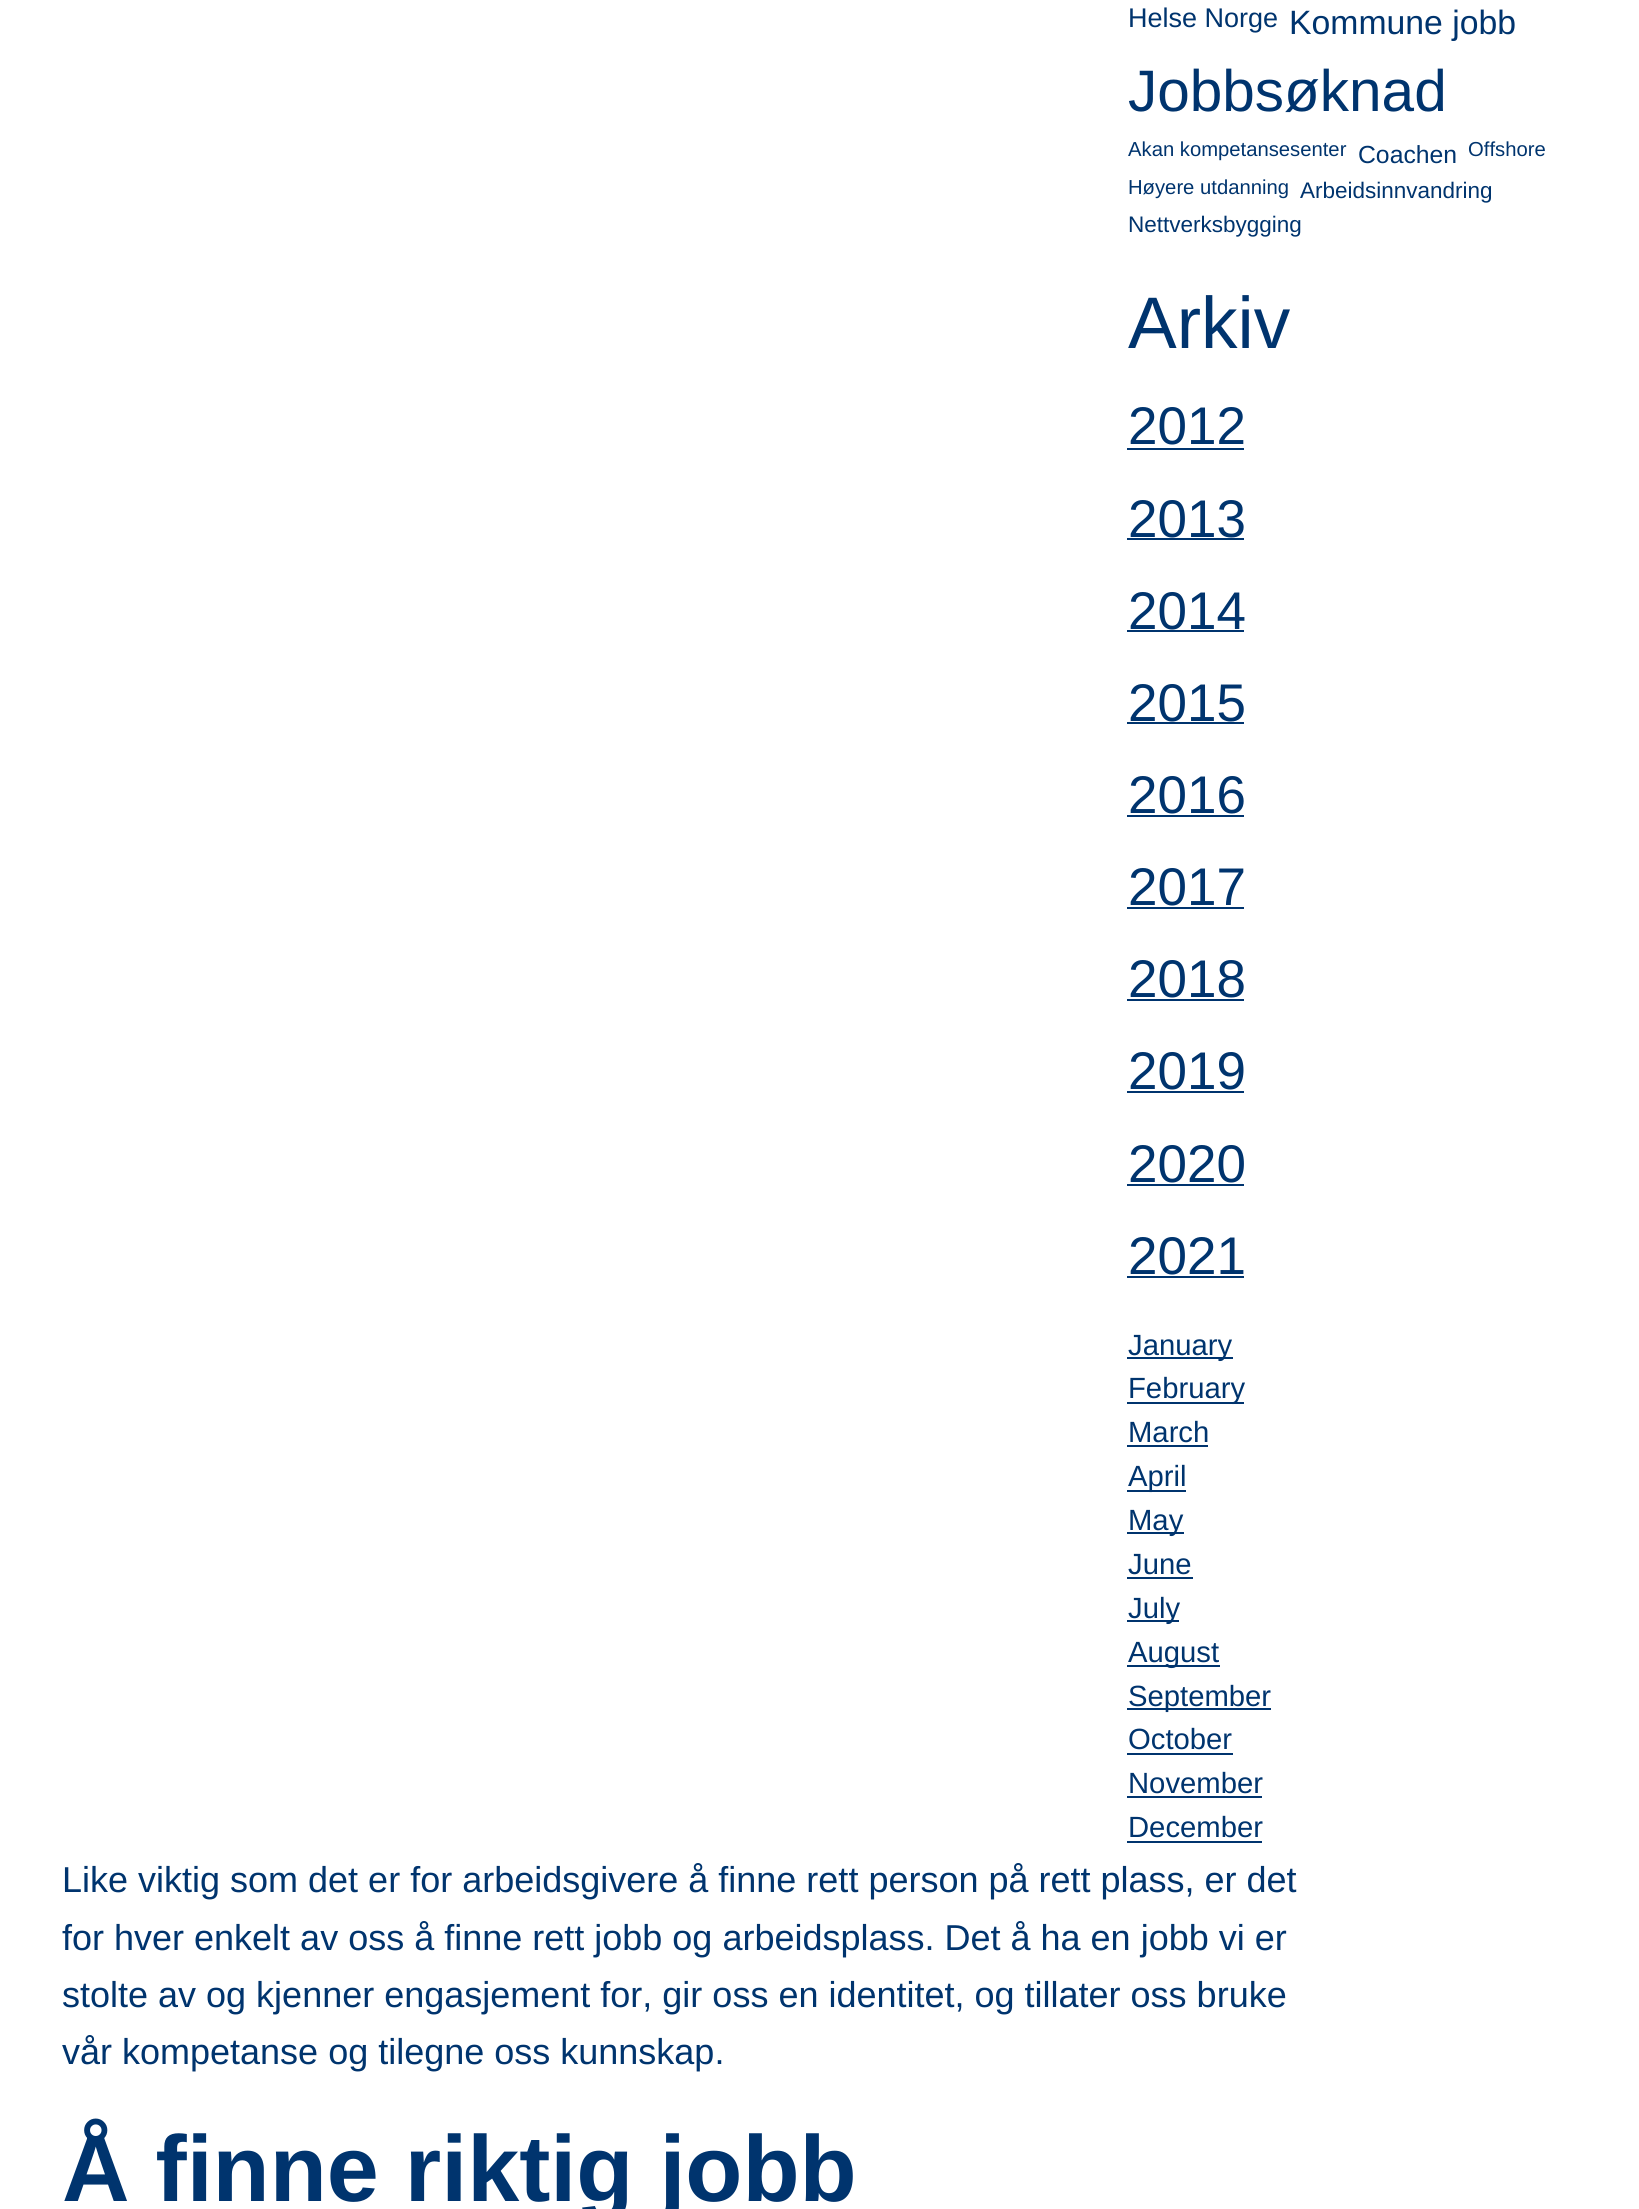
#include <cairo.h>
#include <math.h>
#include <stddef.h>

typedef struct { double x, y; const char *s; } line_t;

static void ink(cairo_t *ctx, unsigned color) {
    cairo_set_source_rgb(ctx, (color >> 16) / 255.0, (color >> 8 & 255) / 255.0, (color & 255) / 255.0);
}

int main(void) {
    cairo_surface_t *surface = cairo_image_surface_create(CAIRO_FORMAT_RGB24, 1639, 2209);
    cairo_t *ctx = cairo_create(surface);
    cairo_font_options_t *options = cairo_font_options_create();
    cairo_font_options_set_hint_metrics(options, CAIRO_HINT_METRICS_OFF);
    cairo_font_options_set_hint_style(options, CAIRO_HINT_STYLE_NONE);
    cairo_set_font_options(ctx, options);
    cairo_set_miter_limit(ctx, 4);
    ink(ctx, 0xFFFFFF);
    cairo_paint(ctx);
    cairo_select_font_face(ctx, "Liberation Sans", CAIRO_FONT_SLANT_NORMAL, CAIRO_FONT_WEIGHT_NORMAL);
    cairo_set_font_size(ctx, 27);
    ink(ctx, 0x00346E);
    cairo_move_to(ctx, 1128, 27);
    cairo_show_text(ctx, "Helse Norge");
    cairo_set_font_size(ctx, 33.75);
    cairo_move_to(ctx, 1289, 34);
    cairo_show_text(ctx, "Kommune jobb");
    cairo_set_font_size(ctx, 58.5);
    cairo_move_to(ctx, 1128, 111);
    cairo_show_text(ctx, "Jobbsøknad");
    cairo_set_font_size(ctx, 20.25);
    cairo_move_to(ctx, 1128, 156);
    cairo_show_text(ctx, "Akan kompetansesenter");
    cairo_set_font_size(ctx, 24.75);
    cairo_move_to(ctx, 1358, 163);
    cairo_show_text(ctx, "Coachen");
    cairo_set_font_size(ctx, 20.25);
    cairo_move_to(ctx, 1468, 156);
    cairo_show_text(ctx, "Offshore");
    cairo_move_to(ctx, 1128, 194);
    cairo_show_text(ctx, "Høyere utdanning");
    cairo_set_font_size(ctx, 22.5);
    cairo_move_to(ctx, 1300, 198);
    cairo_show_text(ctx, "Arbeidsinnvandring");
    cairo_move_to(ctx, 1128, 232);
    cairo_show_text(ctx, "Nettverksbygging");
    cairo_set_font_size(ctx, 73);
    cairo_move_to(ctx, 1128, 348);
    cairo_show_text(ctx, "Arkiv");
    cairo_set_font_size(ctx, 53);
    cairo_move_to(ctx, 1128, 444);
    cairo_show_text(ctx, "2012");
    cairo_rectangle(ctx, 1127, 448, 117, 2);
    cairo_fill(ctx);
    cairo_move_to(ctx, 1128, 537);
    cairo_show_text(ctx, "2013");
    cairo_rectangle(ctx, 1127, 538, 117, 2);
    cairo_fill(ctx);
    cairo_move_to(ctx, 1128, 629);
    cairo_show_text(ctx, "2014");
    cairo_rectangle(ctx, 1127, 630, 117, 2);
    cairo_fill(ctx);
    cairo_move_to(ctx, 1128, 721);
    cairo_show_text(ctx, "2015");
    cairo_rectangle(ctx, 1127, 722, 117, 2);
    cairo_fill(ctx);
    cairo_move_to(ctx, 1128, 813);
    cairo_show_text(ctx, "2016");
    cairo_rectangle(ctx, 1127, 815, 117, 2);
    cairo_fill(ctx);
    cairo_move_to(ctx, 1128, 905);
    cairo_show_text(ctx, "2017");
    cairo_rectangle(ctx, 1127, 907, 117, 2);
    cairo_fill(ctx);
    cairo_move_to(ctx, 1128, 997);
    cairo_show_text(ctx, "2018");
    cairo_rectangle(ctx, 1127, 999, 117, 2);
    cairo_fill(ctx);
    cairo_move_to(ctx, 1128, 1089);
    cairo_show_text(ctx, "2019");
    cairo_rectangle(ctx, 1127, 1091, 117, 2);
    cairo_fill(ctx);
    cairo_move_to(ctx, 1128, 1182);
    cairo_show_text(ctx, "2020");
    cairo_rectangle(ctx, 1127, 1184, 117, 2);
    cairo_fill(ctx);
    cairo_move_to(ctx, 1128, 1274);
    cairo_show_text(ctx, "2021");
    cairo_rectangle(ctx, 1127, 1276, 117, 2);
    cairo_fill(ctx);
    cairo_rectangle(ctx, 1127, 1357, 106, 2);
    cairo_fill(ctx);
    cairo_set_font_size(ctx, 29.25);
    cairo_move_to(ctx, 1128, 1355);
    cairo_show_text(ctx, "January");
    cairo_rectangle(ctx, 1127, 1402, 117, 2);
    cairo_fill(ctx);
    cairo_move_to(ctx, 1128, 1398);
    cairo_show_text(ctx, "February");
    cairo_move_to(ctx, 1128, 1442);
    cairo_show_text(ctx, "March");
    cairo_rectangle(ctx, 1127, 1445, 81, 2);
    cairo_fill(ctx);
    cairo_rectangle(ctx, 1127, 1490, 59, 2);
    cairo_fill(ctx);
    cairo_move_to(ctx, 1128, 1486);
    cairo_show_text(ctx, "April");
    cairo_rectangle(ctx, 1127, 1532, 57, 2);
    cairo_fill(ctx);
    cairo_move_to(ctx, 1128, 1530);
    cairo_show_text(ctx, "May");
    cairo_move_to(ctx, 1128, 1574);
    cairo_show_text(ctx, "June");
    cairo_rectangle(ctx, 1127, 1577, 66, 2);
    cairo_fill(ctx);
    cairo_rectangle(ctx, 1127, 1620, 52, 2);
    cairo_fill(ctx);
    cairo_move_to(ctx, 1128, 1618);
    cairo_show_text(ctx, "July");
    cairo_rectangle(ctx, 1127, 1665, 93, 2);
    cairo_fill(ctx);
    cairo_move_to(ctx, 1128, 1662);
    cairo_show_text(ctx, "August");
    cairo_rectangle(ctx, 1127, 1708, 144, 2);
    cairo_fill(ctx);
    cairo_move_to(ctx, 1128, 1706);
    cairo_show_text(ctx, "September");
    cairo_move_to(ctx, 1128, 1749);
    cairo_show_text(ctx, "October");
    cairo_rectangle(ctx, 1127, 1753, 106, 2);
    cairo_fill(ctx);
    cairo_move_to(ctx, 1128, 1793);
    cairo_show_text(ctx, "November");
    cairo_rectangle(ctx, 1127, 1796, 135, 2);
    cairo_fill(ctx);
    cairo_move_to(ctx, 1128, 1837);
    cairo_show_text(ctx, "December");
    cairo_rectangle(ctx, 1127, 1841, 135, 2);
    cairo_fill(ctx);
    cairo_set_font_size(ctx, 36);
    {
        static const line_t items[] = {
            {62, 1892, "Like viktig som det er for arbeidsgivere å finne rett person på rett plass, er det"},
            {62, 1950, "for hver enkelt av oss å finne rett jobb og arbeidsplass. Det å ha en jobb vi er"},
            {62, 2007, "stolte av og kjenner engasjement for, gir oss en identitet, og tillater oss bruke"},
            {62, 2064, "vår kompetanse og tilegne oss kunnskap."},
        };
        for (size_t i = 0; i < sizeof items / sizeof *items; i++) {
            cairo_move_to(ctx, items[i].x, items[i].y);
            cairo_show_text(ctx, items[i].s);
        }
    }
    cairo_select_font_face(ctx, "Liberation Sans", CAIRO_FONT_SLANT_NORMAL, CAIRO_FONT_WEIGHT_BOLD);
    cairo_set_font_size(ctx, 93.5);
    cairo_move_to(ctx, 62, 2201);
    cairo_show_text(ctx, "Å finne riktig jobb");
    cairo_surface_write_to_png(surface, "image.png");
    cairo_font_options_destroy(options);
    cairo_destroy(ctx);
    cairo_surface_destroy(surface);
    return 0;
}
